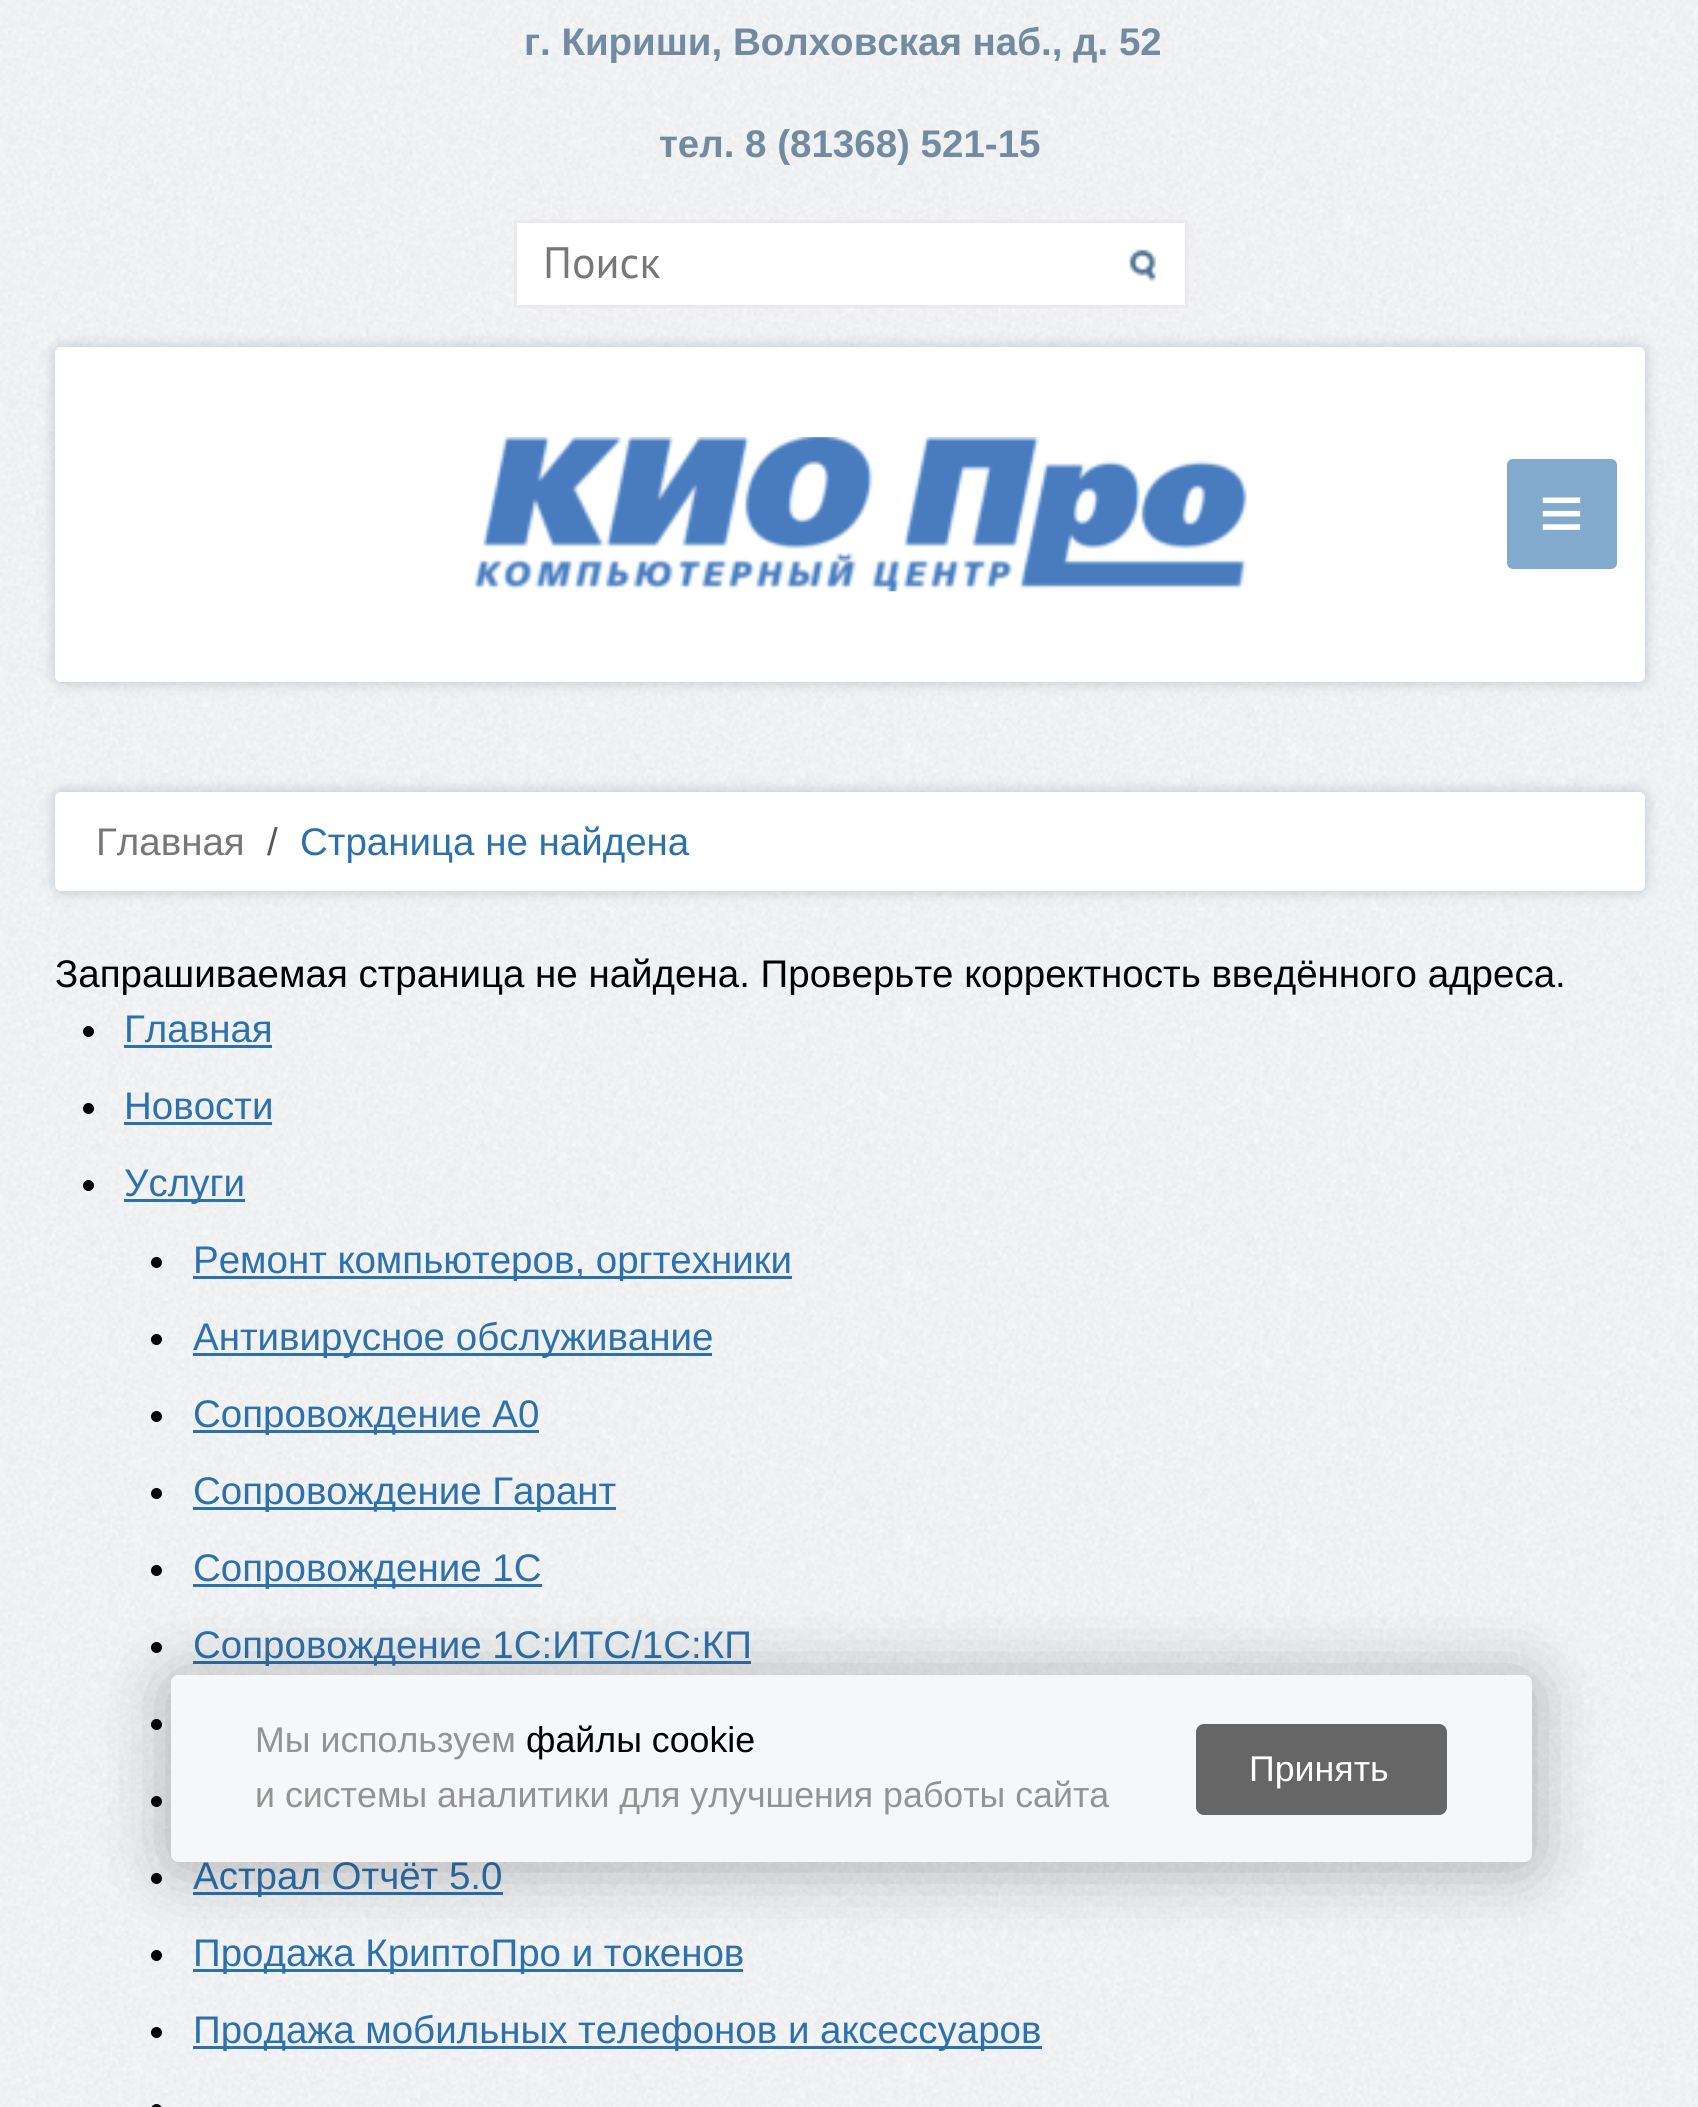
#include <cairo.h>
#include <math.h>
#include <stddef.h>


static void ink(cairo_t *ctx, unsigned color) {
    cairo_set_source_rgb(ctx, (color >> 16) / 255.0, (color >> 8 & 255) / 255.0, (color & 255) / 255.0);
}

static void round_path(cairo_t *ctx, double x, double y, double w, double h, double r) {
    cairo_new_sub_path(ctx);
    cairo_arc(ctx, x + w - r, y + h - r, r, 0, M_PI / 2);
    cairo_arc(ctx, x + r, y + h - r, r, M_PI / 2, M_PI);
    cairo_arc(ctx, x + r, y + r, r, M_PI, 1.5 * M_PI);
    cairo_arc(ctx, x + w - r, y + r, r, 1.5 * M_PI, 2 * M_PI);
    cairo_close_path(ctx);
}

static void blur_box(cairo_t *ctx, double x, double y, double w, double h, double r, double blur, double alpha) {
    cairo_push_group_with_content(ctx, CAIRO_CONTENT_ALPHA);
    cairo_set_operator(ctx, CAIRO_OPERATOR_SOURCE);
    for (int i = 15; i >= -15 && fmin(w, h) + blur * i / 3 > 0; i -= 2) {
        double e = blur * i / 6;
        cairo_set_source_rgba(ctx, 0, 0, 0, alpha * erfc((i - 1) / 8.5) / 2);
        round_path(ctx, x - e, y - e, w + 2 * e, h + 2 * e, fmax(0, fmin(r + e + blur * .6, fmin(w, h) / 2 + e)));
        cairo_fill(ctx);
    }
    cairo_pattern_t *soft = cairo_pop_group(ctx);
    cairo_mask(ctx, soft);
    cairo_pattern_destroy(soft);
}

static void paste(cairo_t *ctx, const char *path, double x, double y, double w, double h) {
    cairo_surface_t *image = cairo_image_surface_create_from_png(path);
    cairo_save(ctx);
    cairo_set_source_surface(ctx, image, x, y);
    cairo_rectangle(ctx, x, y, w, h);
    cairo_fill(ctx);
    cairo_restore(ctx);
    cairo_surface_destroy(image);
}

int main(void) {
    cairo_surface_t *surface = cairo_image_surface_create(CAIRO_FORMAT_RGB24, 1698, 2107);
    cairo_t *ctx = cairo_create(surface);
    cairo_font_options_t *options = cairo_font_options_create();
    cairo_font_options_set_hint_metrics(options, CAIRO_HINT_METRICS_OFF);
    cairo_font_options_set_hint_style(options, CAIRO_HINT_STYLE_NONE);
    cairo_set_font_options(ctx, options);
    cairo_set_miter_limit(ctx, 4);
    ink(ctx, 0xFFFFFF);
    cairo_paint(ctx);
    paste(ctx, "media/1.png", 0, 0, 1698, 2107);
    paste(ctx, "media/2.png", 55, 0, 1589, 292);
    cairo_select_font_face(ctx, "Liberation Sans", CAIRO_FONT_SLANT_NORMAL, CAIRO_FONT_WEIGHT_BOLD);
    cairo_set_font_size(ctx, 38.5);
    ink(ctx, 0x728BA1);
    cairo_move_to(ctx, 524, 55);
    cairo_show_text(ctx, "г. Кириши, Волховская наб., д. 52");
    cairo_move_to(ctx, 659, 157);
    cairo_show_text(ctx, "тел. 8 (81368) 521-15");
    ink(ctx, 0xFFFFFF);
    cairo_rectangle(ctx, 515.5, 221.5, 671, 85);
    cairo_fill_preserve(ctx);
    ink(ctx, 0xEDE9E9);
    cairo_set_line_width(ctx, 3);
    cairo_stroke(ctx);
    cairo_select_font_face(ctx, "PT Sans", CAIRO_FONT_SLANT_NORMAL, CAIRO_FONT_WEIGHT_NORMAL);
    cairo_set_font_size(ctx, 44);
    ink(ctx, 0x777777);
    cairo_move_to(ctx, 543, 278);
    cairo_show_text(ctx, "Поиск");
    paste(ctx, "media/3.png", 1129, 249, 27, 33);
    ink(ctx, 0x93A7B7);
    blur_box(ctx, 55, 347, 1590, 335, 6, 7, 0.6);
    ink(ctx, 0xFFFFFF);
    round_path(ctx, 55, 347, 1590, 335, 6);
    cairo_fill(ctx);
    paste(ctx, "media/4.png", 474, 437, 773, 155);
    ink(ctx, 0x81AACD);
    round_path(ctx, 1507, 459, 110, 110, 6);
    cairo_fill(ctx);
    cairo_select_font_face(ctx, "Liberation Sans", CAIRO_FONT_SLANT_NORMAL, CAIRO_FONT_WEIGHT_NORMAL);
    cairo_set_font_size(ctx, 77);
    ink(ctx, 0xFFFFFF);
    cairo_move_to(ctx, 1539, 539);
    cairo_show_text(ctx, "≡");
    ink(ctx, 0x93A7B7);
    blur_box(ctx, 55, 792, 1590, 99, 6, 7, 0.6);
    ink(ctx, 0xFFFFFF);
    round_path(ctx, 55, 792, 1590, 99, 6);
    cairo_fill(ctx);
    cairo_set_font_size(ctx, 38.5);
    ink(ctx, 0x777777);
    cairo_move_to(ctx, 96, 855);
    cairo_show_text(ctx, "Главная");
    ink(ctx, 0x56595C);
    cairo_move_to(ctx, 267, 855);
    cairo_show_text(ctx, "/");
    ink(ctx, 0x2D71AC);
    cairo_move_to(ctx, 300, 855);
    cairo_show_text(ctx, "Страница не найдена");
    ink(ctx, 0x000000);
    cairo_move_to(ctx, 55, 987);
    cairo_show_text(ctx, "Запрашиваемая страница не найдена. Проверьте корректность введённого адреса.");
    cairo_new_path(ctx);
    cairo_arc(ctx, 88.5, 1031.5, 5.5, 0, 2 * M_PI);
    cairo_fill(ctx);
    ink(ctx, 0x2D71AC);
    cairo_move_to(ctx, 124, 1042);
    cairo_show_text(ctx, "Главная");
    cairo_rectangle(ctx, 124, 1045, 148, 3);
    cairo_fill(ctx);
    ink(ctx, 0x000000);
    cairo_arc(ctx, 88.5, 1108.5, 5.5, 0, 2 * M_PI);
    cairo_fill(ctx);
    ink(ctx, 0x2D71AC);
    cairo_move_to(ctx, 124, 1119);
    cairo_show_text(ctx, "Новости");
    cairo_rectangle(ctx, 124, 1122, 148, 3);
    cairo_fill(ctx);
    ink(ctx, 0x000000);
    cairo_arc(ctx, 88.5, 1185.5, 5.5, 0, 2 * M_PI);
    cairo_fill(ctx);
    ink(ctx, 0x2D71AC);
    cairo_rectangle(ctx, 124, 1199, 121, 3);
    cairo_fill(ctx);
    cairo_move_to(ctx, 124, 1196);
    cairo_show_text(ctx, "Услуги");
    ink(ctx, 0x000000);
    cairo_new_path(ctx);
    cairo_arc(ctx, 156.5, 1262.5, 5.5, 0, 2 * M_PI);
    cairo_fill(ctx);
    ink(ctx, 0x2D71AC);
    cairo_rectangle(ctx, 193, 1276, 599, 3);
    cairo_fill(ctx);
    cairo_move_to(ctx, 193, 1273);
    cairo_show_text(ctx, "Ремонт компьютеров, оргтехники");
    ink(ctx, 0x000000);
    cairo_new_path(ctx);
    cairo_arc(ctx, 156.5, 1339.5, 5.5, 0, 2 * M_PI);
    cairo_fill(ctx);
    ink(ctx, 0x2D71AC);
    cairo_rectangle(ctx, 193, 1353, 519, 3);
    cairo_fill(ctx);
    cairo_move_to(ctx, 193, 1350);
    cairo_show_text(ctx, "Антивирусное обслуживание");
    ink(ctx, 0x000000);
    cairo_new_path(ctx);
    cairo_arc(ctx, 156.5, 1416.5, 5.5, 0, 2 * M_PI);
    cairo_fill(ctx);
    ink(ctx, 0x2D71AC);
    cairo_rectangle(ctx, 193, 1430, 346, 3);
    cairo_fill(ctx);
    cairo_move_to(ctx, 193, 1427);
    cairo_show_text(ctx, "Сопровождение А0");
    ink(ctx, 0x000000);
    cairo_new_path(ctx);
    cairo_arc(ctx, 156.5, 1493.5, 5.5, 0, 2 * M_PI);
    cairo_fill(ctx);
    ink(ctx, 0x2D71AC);
    cairo_rectangle(ctx, 193, 1507, 423, 3);
    cairo_fill(ctx);
    cairo_move_to(ctx, 193, 1504);
    cairo_show_text(ctx, "Сопровождение Гарант");
    ink(ctx, 0x000000);
    cairo_new_path(ctx);
    cairo_arc(ctx, 156.5, 1570.5, 5.5, 0, 2 * M_PI);
    cairo_fill(ctx);
    ink(ctx, 0x2D71AC);
    cairo_rectangle(ctx, 193, 1584, 349, 3);
    cairo_fill(ctx);
    cairo_move_to(ctx, 193, 1581);
    cairo_show_text(ctx, "Сопровождение 1С");
    ink(ctx, 0x000000);
    cairo_new_path(ctx);
    cairo_arc(ctx, 156.5, 1647.5, 5.5, 0, 2 * M_PI);
    cairo_fill(ctx);
    ink(ctx, 0x2D71AC);
    cairo_rectangle(ctx, 193, 1661, 558, 3);
    cairo_fill(ctx);
    cairo_move_to(ctx, 193, 1658);
    cairo_show_text(ctx, "Сопровождение 1С:ИТС/1С:КП");
    ink(ctx, 0x000000);
    cairo_new_path(ctx);
    cairo_arc(ctx, 156.5, 1724.5, 5.5, 0, 2 * M_PI);
    cairo_fill(ctx);
    cairo_arc(ctx, 156.5, 1801.5, 5.5, 0, 2 * M_PI);
    cairo_fill(ctx);
    cairo_arc(ctx, 156.5, 1878.5, 5.5, 0, 2 * M_PI);
    cairo_fill(ctx);
    ink(ctx, 0x2D71AC);
    cairo_rectangle(ctx, 193, 1892, 310, 3);
    cairo_fill(ctx);
    cairo_move_to(ctx, 193, 1889);
    cairo_show_text(ctx, "Астрал Отчёт 5.0");
    ink(ctx, 0x000000);
    cairo_new_path(ctx);
    cairo_arc(ctx, 156.5, 1955.5, 5.5, 0, 2 * M_PI);
    cairo_fill(ctx);
    ink(ctx, 0x2D71AC);
    cairo_rectangle(ctx, 193, 1969, 550, 3);
    cairo_fill(ctx);
    cairo_move_to(ctx, 193, 1966);
    cairo_show_text(ctx, "Продажа КриптоПро и токенов");
    ink(ctx, 0x000000);
    cairo_new_path(ctx);
    cairo_arc(ctx, 156.5, 2032.5, 5.5, 0, 2 * M_PI);
    cairo_fill(ctx);
    ink(ctx, 0x2D71AC);
    cairo_rectangle(ctx, 193, 2046, 849, 3);
    cairo_fill(ctx);
    cairo_move_to(ctx, 193, 2043);
    cairo_show_text(ctx, "Продажа мобильных телефонов и аксессуаров");
    ink(ctx, 0x000000);
    round_path(ctx, 151, 2104, 11, 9, 5.5);
    cairo_fill(ctx);
    cairo_save(ctx);
    cairo_set_fill_rule(ctx, CAIRO_FILL_RULE_EVEN_ODD);
    cairo_new_path(ctx);
    cairo_move_to(ctx, 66, 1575);
    cairo_line_to(ctx, 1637, 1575);
    cairo_line_to(ctx, 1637, 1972);
    cairo_line_to(ctx, 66, 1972);
    cairo_close_path(ctx);
    cairo_move_to(ctx, 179, 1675);
    cairo_line_to(ctx, 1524, 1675);
    cairo_curve_to(ctx, 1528.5, 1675, 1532, 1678.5, 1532, 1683);
    cairo_line_to(ctx, 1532, 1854);
    cairo_curve_to(ctx, 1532, 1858.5, 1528.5, 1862, 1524, 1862);
    cairo_line_to(ctx, 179, 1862);
    cairo_curve_to(ctx, 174.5, 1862, 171, 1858.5, 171, 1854);
    cairo_line_to(ctx, 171, 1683);
    cairo_curve_to(ctx, 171, 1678.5, 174.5, 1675, 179, 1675);
    cairo_close_path(ctx);
    cairo_clip(ctx);
    ink(ctx, 0x000000);
    blur_box(ctx, 171, 1680, 1361, 187, 8, 34.5, 0.3);
    cairo_restore(ctx);
    ink(ctx, 0xF6F7F8);
    round_path(ctx, 171, 1675, 1361, 187, 8);
    cairo_fill(ctx);
    cairo_set_font_size(ctx, 35.75);
    ink(ctx, 0x939393);
    cairo_move_to(ctx, 255, 1752);
    cairo_show_text(ctx, "Мы используем");
    ink(ctx, 0x000000);
    cairo_move_to(ctx, 526, 1752);
    cairo_show_text(ctx, "файлы cookie");
    ink(ctx, 0x939393);
    cairo_move_to(ctx, 255, 1807);
    cairo_show_text(ctx, "и системы аналитики для улучшения работы сайта");
    ink(ctx, 0x666666);
    round_path(ctx, 1196, 1724, 251, 91, 8);
    cairo_fill(ctx);
    ink(ctx, 0xFFFFFF);
    cairo_move_to(ctx, 1249, 1781);
    cairo_show_text(ctx, "Принять");
    cairo_surface_write_to_png(surface, "image.png");
    cairo_font_options_destroy(options);
    cairo_destroy(ctx);
    cairo_surface_destroy(surface);
    return 0;
}
